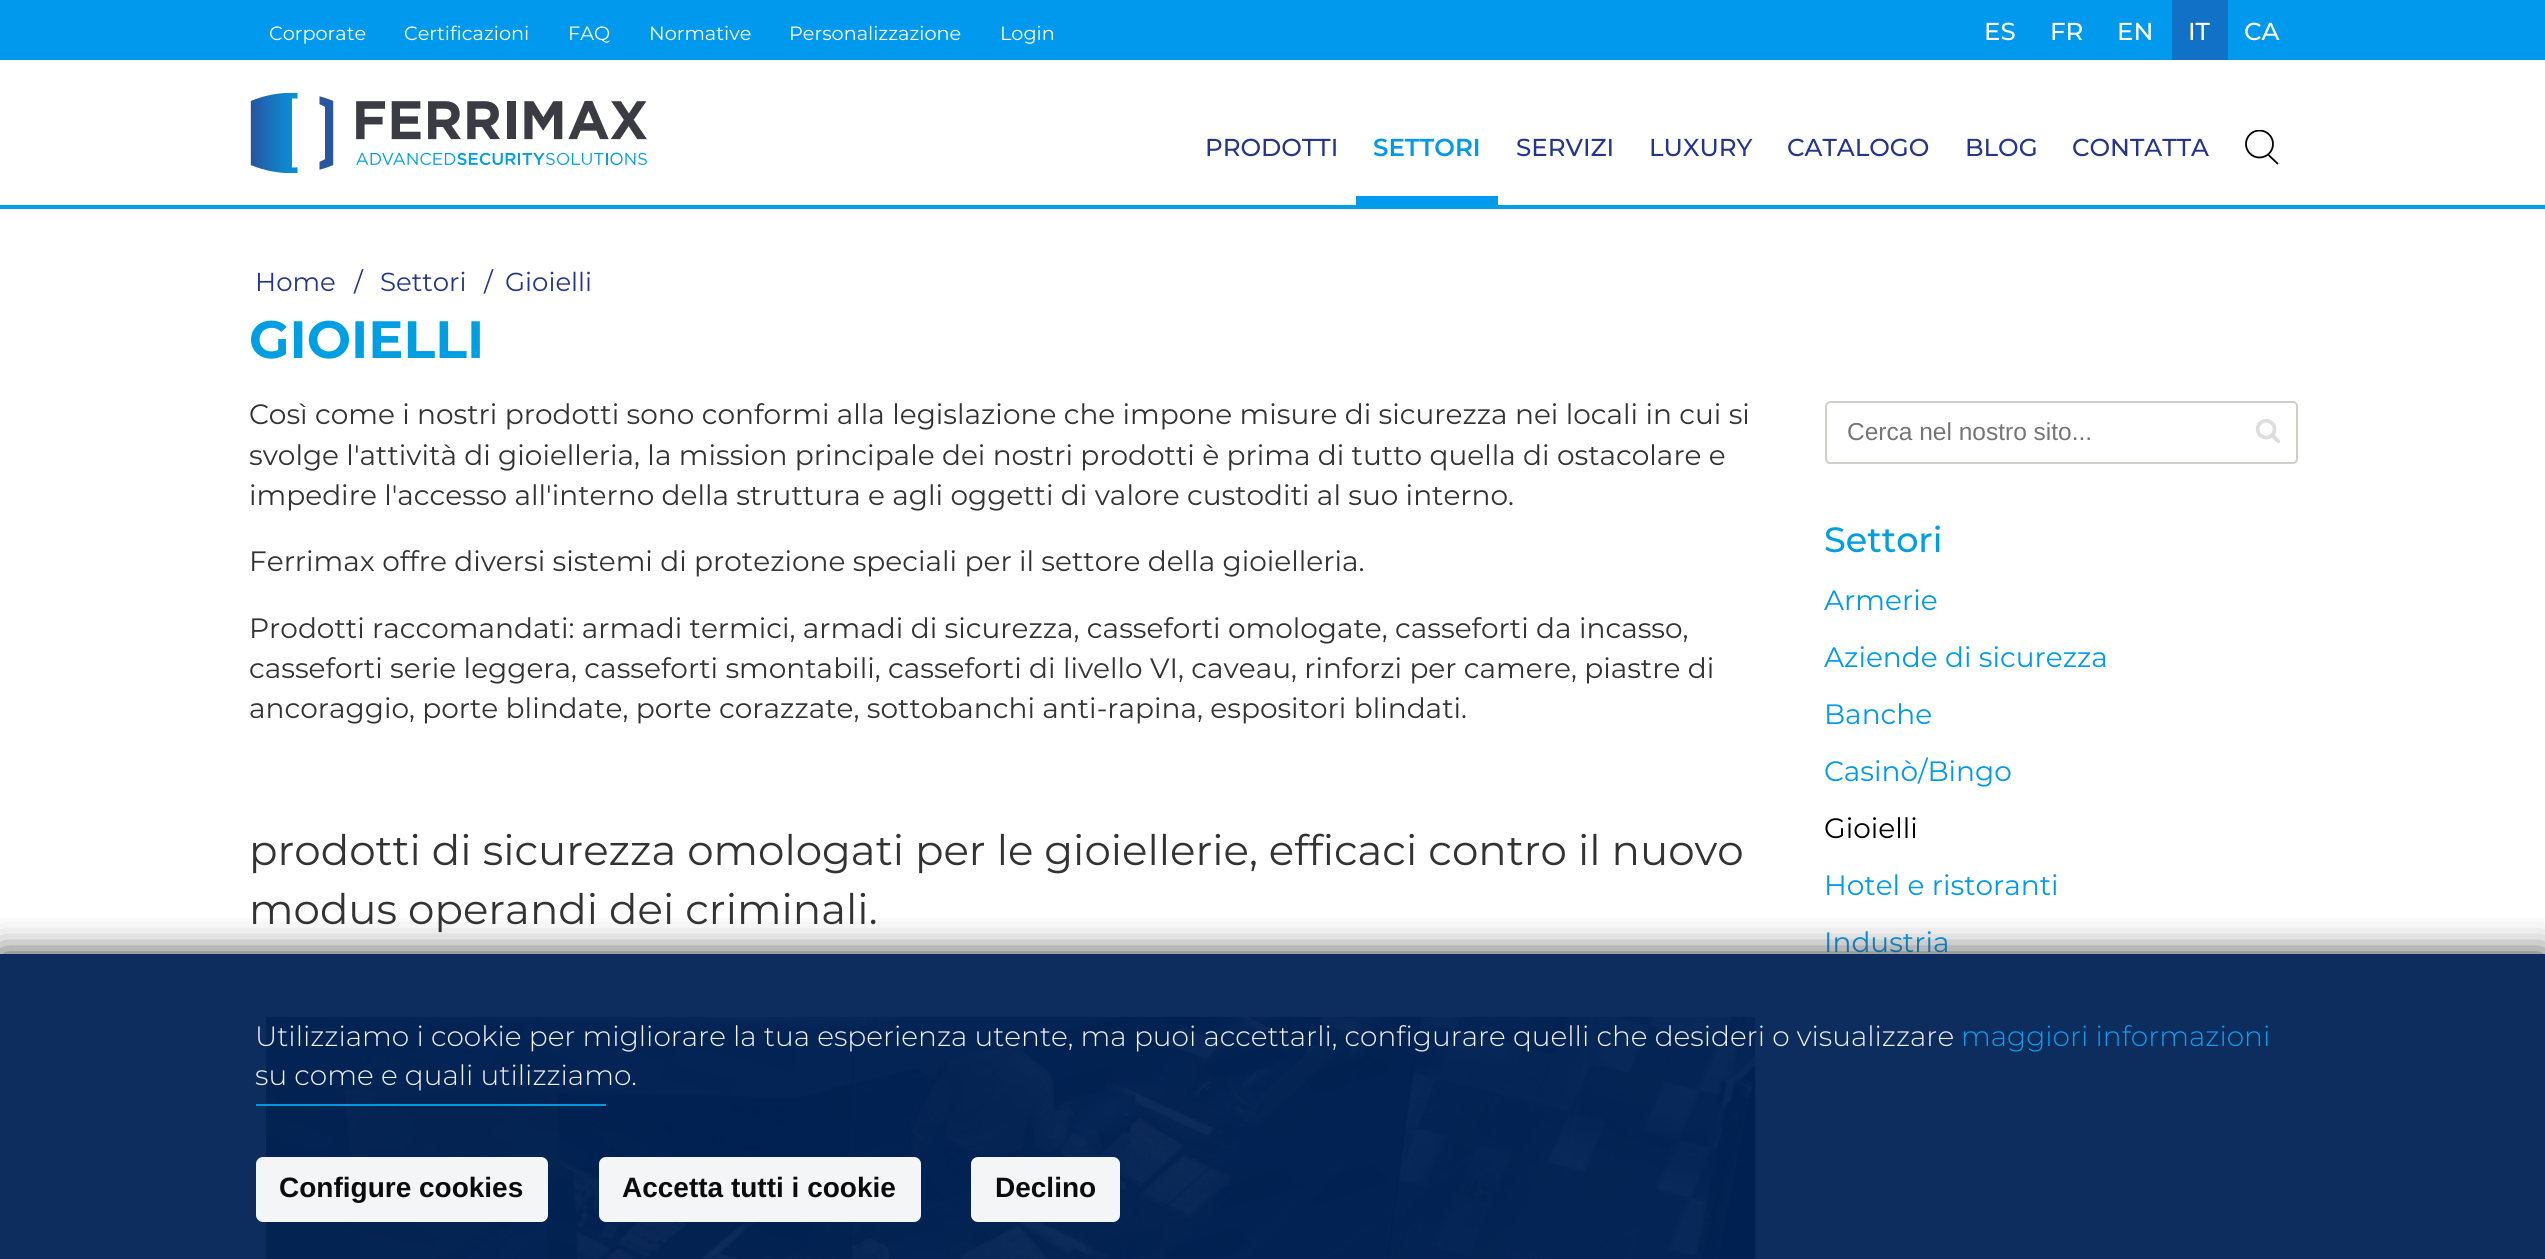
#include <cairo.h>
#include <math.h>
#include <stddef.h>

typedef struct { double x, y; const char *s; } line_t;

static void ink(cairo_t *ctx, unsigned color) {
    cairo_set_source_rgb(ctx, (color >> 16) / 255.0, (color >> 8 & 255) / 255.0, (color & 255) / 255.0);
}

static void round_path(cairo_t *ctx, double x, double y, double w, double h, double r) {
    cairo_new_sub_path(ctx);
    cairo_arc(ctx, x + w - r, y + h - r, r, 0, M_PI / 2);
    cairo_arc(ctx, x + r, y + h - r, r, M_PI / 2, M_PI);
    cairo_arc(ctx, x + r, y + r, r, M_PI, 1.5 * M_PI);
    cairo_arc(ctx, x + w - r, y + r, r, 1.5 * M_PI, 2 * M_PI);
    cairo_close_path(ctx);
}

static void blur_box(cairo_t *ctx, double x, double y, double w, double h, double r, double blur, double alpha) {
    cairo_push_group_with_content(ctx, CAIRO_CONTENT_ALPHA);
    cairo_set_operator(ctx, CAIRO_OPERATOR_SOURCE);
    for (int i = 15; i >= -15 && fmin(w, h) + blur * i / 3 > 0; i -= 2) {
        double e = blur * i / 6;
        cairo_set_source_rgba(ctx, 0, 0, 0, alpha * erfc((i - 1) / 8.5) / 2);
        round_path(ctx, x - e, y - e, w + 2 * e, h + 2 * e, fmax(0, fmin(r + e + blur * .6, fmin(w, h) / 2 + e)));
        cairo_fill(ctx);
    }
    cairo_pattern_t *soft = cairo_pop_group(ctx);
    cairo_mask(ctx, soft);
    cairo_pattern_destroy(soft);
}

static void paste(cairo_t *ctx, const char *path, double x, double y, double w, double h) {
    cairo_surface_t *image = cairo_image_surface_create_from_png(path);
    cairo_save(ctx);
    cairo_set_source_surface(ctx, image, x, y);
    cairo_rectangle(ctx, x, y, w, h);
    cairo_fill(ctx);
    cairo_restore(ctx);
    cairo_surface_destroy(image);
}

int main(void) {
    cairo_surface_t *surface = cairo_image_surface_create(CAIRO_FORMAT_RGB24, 2545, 1259);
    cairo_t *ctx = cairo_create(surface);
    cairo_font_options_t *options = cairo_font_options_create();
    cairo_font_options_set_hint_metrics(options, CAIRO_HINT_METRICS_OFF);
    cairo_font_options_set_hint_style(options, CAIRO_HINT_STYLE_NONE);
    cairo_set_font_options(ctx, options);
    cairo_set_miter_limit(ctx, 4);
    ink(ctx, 0xFFFFFF);
    cairo_paint(ctx);
    ink(ctx, 0x0199ED);
    cairo_rectangle(ctx, 0, 0, 2545, 60);
    cairo_fill(ctx);
    cairo_select_font_face(ctx, "Montserrat", CAIRO_FONT_SLANT_NORMAL, CAIRO_FONT_WEIGHT_NORMAL);
    cairo_set_font_size(ctx, 19.25);
    ink(ctx, 0xFFFFFF);
    {
        static const line_t items[] = {
            {269, 40, "Corporate"},
            {404, 40, "Certificazioni"},
            {568, 40, "FAQ"},
            {649, 40, "Normative"},
            {789, 40, "Personalizzazione"},
            {1000, 40, "Login"},
        };
        for (size_t i = 0; i < sizeof items / sizeof *items; i++) {
            cairo_move_to(ctx, items[i].x, items[i].y);
            cairo_show_text(ctx, items[i].s);
        }
    }
    cairo_select_font_face(ctx, "Montserrat Medium", CAIRO_FONT_SLANT_NORMAL, CAIRO_FONT_WEIGHT_NORMAL);
    cairo_set_font_size(ctx, 24.5);
    {
        static const line_t items[] = {
            {1984, 40, "ES"},
            {2050, 40, "FR"},
            {2117, 40, "EN"},
        };
        for (size_t i = 0; i < sizeof items / sizeof *items; i++) {
            cairo_move_to(ctx, items[i].x, items[i].y);
            cairo_show_text(ctx, items[i].s);
        }
    }
    ink(ctx, 0x1071C6);
    cairo_rectangle(ctx, 2172, 0, 56, 60);
    cairo_fill(ctx);
    ink(ctx, 0xFFFFFF);
    cairo_move_to(ctx, 2188, 40);
    cairo_show_text(ctx, "IT");
    cairo_move_to(ctx, 2244, 40);
    cairo_show_text(ctx, "CA");
    ink(ctx, 0x009FE3);
    cairo_rectangle(ctx, 0, 205, 2545, 4);
    cairo_fill(ctx);
    paste(ctx, "media/1.png", 250, 93, 397, 80);
    ink(ctx, 0x26358C);
    cairo_move_to(ctx, 1205, 156);
    cairo_show_text(ctx, "PRODOTTI");
    ink(ctx, 0x0199ED);
    cairo_rectangle(ctx, 1356, 196, 142, 9);
    cairo_fill(ctx);
    cairo_select_font_face(ctx, "Montserrat SemiBold", CAIRO_FONT_SLANT_NORMAL, CAIRO_FONT_WEIGHT_NORMAL);
    cairo_move_to(ctx, 1373, 156);
    cairo_show_text(ctx, "SETTORI");
    cairo_select_font_face(ctx, "Montserrat Medium", CAIRO_FONT_SLANT_NORMAL, CAIRO_FONT_WEIGHT_NORMAL);
    ink(ctx, 0x26358C);
    {
        static const line_t items[] = {
            {1516, 156, "SERVIZI"},
            {1649, 156, "LUXURY"},
            {1787, 156, "CATALOGO"},
            {1965, 156, "BLOG"},
            {2072, 156, "CONTATTA"},
        };
        for (size_t i = 0; i < sizeof items / sizeof *items; i++) {
            cairo_move_to(ctx, items[i].x, items[i].y);
            cairo_show_text(ctx, items[i].s);
        }
    }
    cairo_save(ctx);
    cairo_rectangle(ctx, 2245, 130, 34, 35);
    cairo_clip(ctx);
    cairo_arc(ctx, 2259.5, 144, 13.5, 0, 2 * M_PI);
    ink(ctx, 0x000000);
    cairo_set_line_width(ctx, 1.8);
    cairo_stroke(ctx);
    cairo_restore(ctx);
    cairo_new_path(ctx);
    cairo_move_to(ctx, 2268.5, 155);
    cairo_line_to(ctx, 2278, 164);
    ink(ctx, 0x000000);
    cairo_set_line_width(ctx, 1.8);
    cairo_stroke(ctx);
    ink(ctx, 0x0D2D5E);
    cairo_rectangle(ctx, 0, 954, 2545, 305);
    cairo_fill(ctx);
    cairo_select_font_face(ctx, "Montserrat", CAIRO_FONT_SLANT_NORMAL, CAIRO_FONT_WEIGHT_NORMAL);
    cairo_set_font_size(ctx, 26);
    ink(ctx, 0x26358C);
    {
        static const line_t items[] = {
            {255, 291, "Home"},
            {354, 291, "/"},
            {380, 291, "Settori"},
            {484, 291, "/"},
            {505, 291, "Gioielli"},
        };
        for (size_t i = 0; i < sizeof items / sizeof *items; i++) {
            cairo_move_to(ctx, items[i].x, items[i].y);
            cairo_show_text(ctx, items[i].s);
        }
    }
    cairo_select_font_face(ctx, "Montserrat", CAIRO_FONT_SLANT_NORMAL, CAIRO_FONT_WEIGHT_BOLD);
    cairo_set_font_size(ctx, 52.5);
    ink(ctx, 0x009FE3);
    cairo_move_to(ctx, 249, 358);
    cairo_show_text(ctx, "GIOIELLI");
    cairo_select_font_face(ctx, "Montserrat", CAIRO_FONT_SLANT_NORMAL, CAIRO_FONT_WEIGHT_NORMAL);
    cairo_set_font_size(ctx, 28);
    ink(ctx, 0x333333);
    {
        static const line_t items[] = {
            {249, 424, "Così come i nostri prodotti sono conformi alla legislazione che impone misure di sicurezza nei locali in cui si"},
            {249, 465, "svolge l'attività di gioielleria, la mission principale dei nostri prodotti è prima di tutto quella di ostacolare e"},
            {249, 505, "impedire l'accesso all'interno della struttura e agli oggetti di valore custoditi al suo interno."},
            {249, 571, "Ferrimax offre diversi sistemi di protezione speciali per il settore della gioielleria."},
            {249, 638, "Prodotti raccomandati: armadi termici, armadi di sicurezza, casseforti omologate, casseforti da incasso,"},
            {249, 678, "casseforti serie leggera, casseforti smontabili, casseforti di livello VI, caveau, rinforzi per camere, piastre di"},
            {249, 718, "ancoraggio, porte blindate, porte corazzate, sottobanchi anti-rapina, espositori blindati."},
        };
        for (size_t i = 0; i < sizeof items / sizeof *items; i++) {
            cairo_move_to(ctx, items[i].x, items[i].y);
            cairo_show_text(ctx, items[i].s);
        }
    }
    cairo_set_font_size(ctx, 42);
    cairo_move_to(ctx, 249, 865);
    cairo_show_text(ctx, "prodotti di sicurezza omologati per le gioiellerie, efficaci contro il nuovo");
    cairo_move_to(ctx, 249, 924);
    cairo_show_text(ctx, "modus operandi dei criminali.");
    paste(ctx, "media/2.png", 266, 1016, 1490, 243);
    round_path(ctx, 1826, 402, 471, 61, 4);
    ink(ctx, 0xD0CFCA);
    cairo_set_line_width(ctx, 2);
    cairo_stroke(ctx);
    cairo_select_font_face(ctx, "Liberation Sans", CAIRO_FONT_SLANT_NORMAL, CAIRO_FONT_WEIGHT_NORMAL);
    cairo_set_font_size(ctx, 24.5);
    ink(ctx, 0x757575);
    cairo_move_to(ctx, 1847, 440);
    cairo_show_text(ctx, "Cerca nel nostro sito...");
    paste(ctx, "media/3.png", 2255, 418, 25, 26);
    cairo_select_font_face(ctx, "Montserrat Medium", CAIRO_FONT_SLANT_NORMAL, CAIRO_FONT_WEIGHT_NORMAL);
    cairo_set_font_size(ctx, 35);
    ink(ctx, 0x009FE3);
    cairo_move_to(ctx, 1824, 552);
    cairo_show_text(ctx, "Settori");
    cairo_select_font_face(ctx, "Montserrat", CAIRO_FONT_SLANT_NORMAL, CAIRO_FONT_WEIGHT_NORMAL);
    cairo_set_font_size(ctx, 28);
    ink(ctx, 0x0199ED);
    {
        static const line_t items[] = {
            {1824, 610, "Armerie"},
            {1824, 667, "Aziende di sicurezza"},
            {1824, 724, "Banche"},
            {1824, 781, "Casinò/Bingo"},
        };
        for (size_t i = 0; i < sizeof items / sizeof *items; i++) {
            cairo_move_to(ctx, items[i].x, items[i].y);
            cairo_show_text(ctx, items[i].s);
        }
    }
    ink(ctx, 0x000000);
    cairo_move_to(ctx, 1824, 838);
    cairo_show_text(ctx, "Gioielli");
    ink(ctx, 0x0199ED);
    cairo_move_to(ctx, 1824, 895);
    cairo_show_text(ctx, "Hotel e ristoranti");
    cairo_move_to(ctx, 1824, 952);
    cairo_show_text(ctx, "Industria");
    cairo_save(ctx);
    cairo_rectangle(ctx, 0, 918, 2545, 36);
    cairo_clip(ctx);
    ink(ctx, 0x333333);
    blur_box(ctx, 0, 954, 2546, 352, 0, 17.5, 0.95);
    cairo_restore(ctx);
    cairo_select_font_face(ctx, "Montserrat Light", CAIRO_FONT_SLANT_NORMAL, CAIRO_FONT_WEIGHT_NORMAL);
    ink(ctx, 0xF2F4F7);
    cairo_move_to(ctx, 255, 1046);
    cairo_show_text(ctx, "Utilizziamo i cookie per migliorare la tua esperienza utente, ma puoi accettarli, configurare quelli che desideri o visualizzare");
    ink(ctx, 0x0E9EEE);
    cairo_move_to(ctx, 1961, 1046);
    cairo_show_text(ctx, "maggiori informazioni");
    ink(ctx, 0xF2F4F7);
    cairo_move_to(ctx, 255, 1085);
    cairo_show_text(ctx, "su come e quali utilizziamo.");
    cairo_set_source_rgba(ctx, 0, 0.624, 0.89, 0.95);
    cairo_rectangle(ctx, 256, 1104, 350, 2);
    cairo_fill(ctx);
    cairo_set_source_rgba(ctx, 1, 1, 1, 0.95);
    round_path(ctx, 256, 1157, 292, 65, 7);
    cairo_fill(ctx);
    cairo_select_font_face(ctx, "Liberation Sans", CAIRO_FONT_SLANT_NORMAL, CAIRO_FONT_WEIGHT_BOLD);
    ink(ctx, 0x0C0C0C);
    cairo_move_to(ctx, 279, 1197);
    cairo_show_text(ctx, "Configure cookies");
    cairo_set_source_rgba(ctx, 1, 1, 1, 0.95);
    round_path(ctx, 599, 1157, 322, 65, 7);
    cairo_fill(ctx);
    ink(ctx, 0x0C0C0C);
    cairo_move_to(ctx, 622, 1197);
    cairo_show_text(ctx, "Accetta tutti i cookie");
    cairo_set_source_rgba(ctx, 1, 1, 1, 0.95);
    round_path(ctx, 971, 1157, 149, 65, 7);
    cairo_fill(ctx);
    ink(ctx, 0x0C0C0C);
    cairo_move_to(ctx, 995, 1197);
    cairo_show_text(ctx, "Declino");
    cairo_surface_write_to_png(surface, "image.png");
    cairo_font_options_destroy(options);
    cairo_destroy(ctx);
    cairo_surface_destroy(surface);
    return 0;
}
